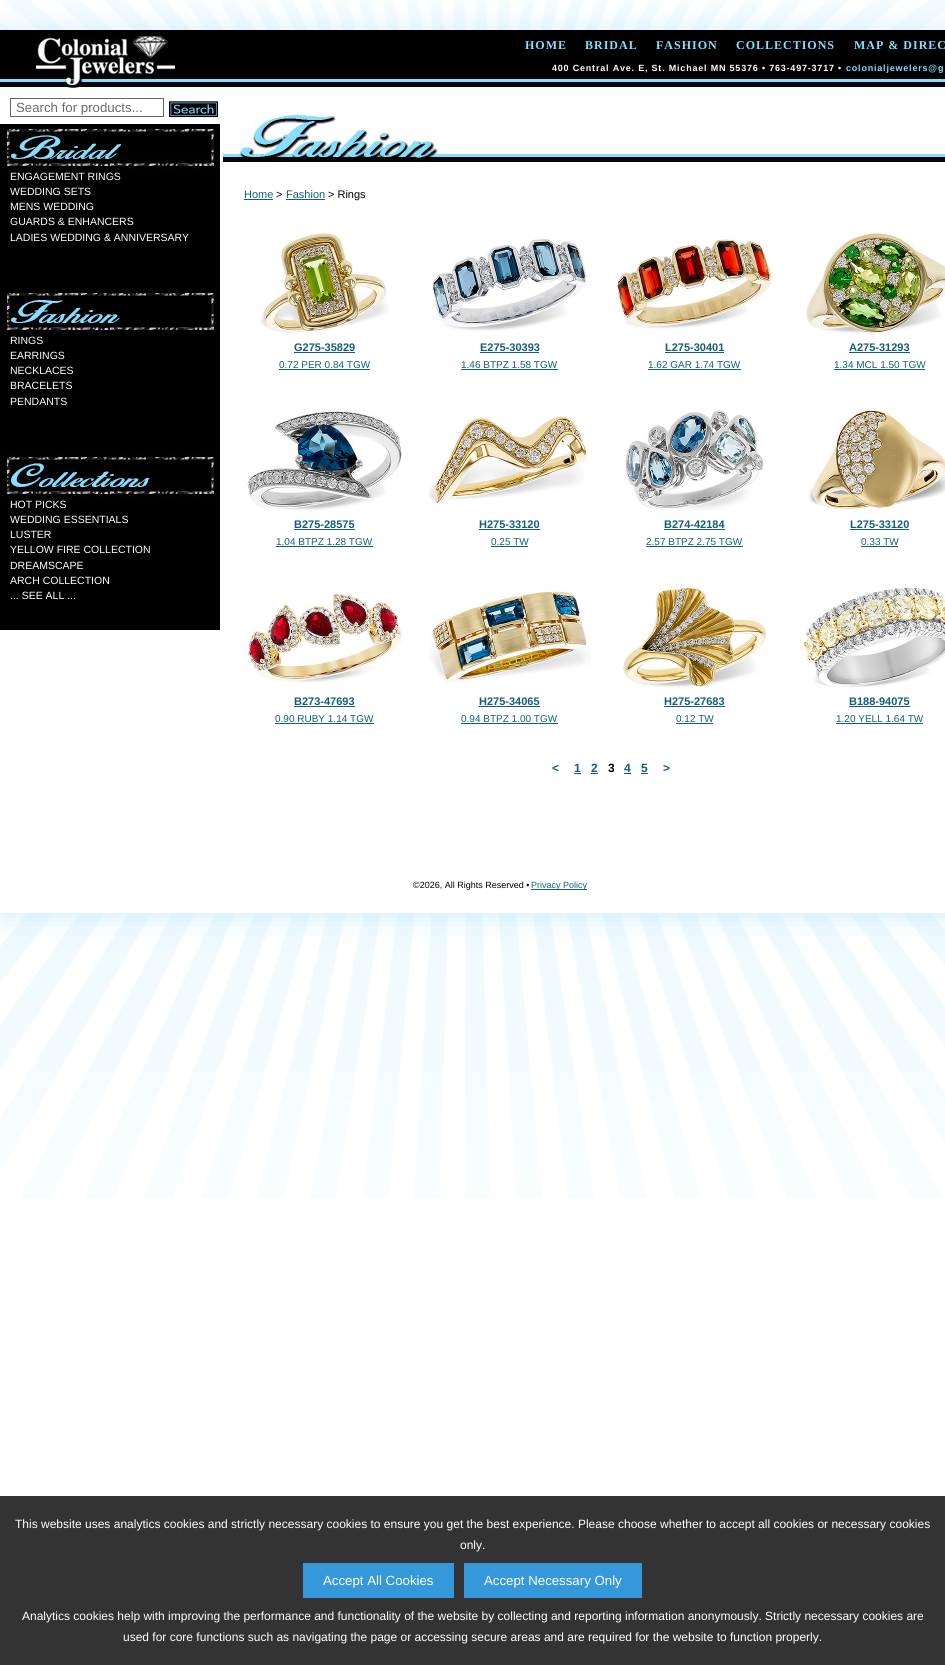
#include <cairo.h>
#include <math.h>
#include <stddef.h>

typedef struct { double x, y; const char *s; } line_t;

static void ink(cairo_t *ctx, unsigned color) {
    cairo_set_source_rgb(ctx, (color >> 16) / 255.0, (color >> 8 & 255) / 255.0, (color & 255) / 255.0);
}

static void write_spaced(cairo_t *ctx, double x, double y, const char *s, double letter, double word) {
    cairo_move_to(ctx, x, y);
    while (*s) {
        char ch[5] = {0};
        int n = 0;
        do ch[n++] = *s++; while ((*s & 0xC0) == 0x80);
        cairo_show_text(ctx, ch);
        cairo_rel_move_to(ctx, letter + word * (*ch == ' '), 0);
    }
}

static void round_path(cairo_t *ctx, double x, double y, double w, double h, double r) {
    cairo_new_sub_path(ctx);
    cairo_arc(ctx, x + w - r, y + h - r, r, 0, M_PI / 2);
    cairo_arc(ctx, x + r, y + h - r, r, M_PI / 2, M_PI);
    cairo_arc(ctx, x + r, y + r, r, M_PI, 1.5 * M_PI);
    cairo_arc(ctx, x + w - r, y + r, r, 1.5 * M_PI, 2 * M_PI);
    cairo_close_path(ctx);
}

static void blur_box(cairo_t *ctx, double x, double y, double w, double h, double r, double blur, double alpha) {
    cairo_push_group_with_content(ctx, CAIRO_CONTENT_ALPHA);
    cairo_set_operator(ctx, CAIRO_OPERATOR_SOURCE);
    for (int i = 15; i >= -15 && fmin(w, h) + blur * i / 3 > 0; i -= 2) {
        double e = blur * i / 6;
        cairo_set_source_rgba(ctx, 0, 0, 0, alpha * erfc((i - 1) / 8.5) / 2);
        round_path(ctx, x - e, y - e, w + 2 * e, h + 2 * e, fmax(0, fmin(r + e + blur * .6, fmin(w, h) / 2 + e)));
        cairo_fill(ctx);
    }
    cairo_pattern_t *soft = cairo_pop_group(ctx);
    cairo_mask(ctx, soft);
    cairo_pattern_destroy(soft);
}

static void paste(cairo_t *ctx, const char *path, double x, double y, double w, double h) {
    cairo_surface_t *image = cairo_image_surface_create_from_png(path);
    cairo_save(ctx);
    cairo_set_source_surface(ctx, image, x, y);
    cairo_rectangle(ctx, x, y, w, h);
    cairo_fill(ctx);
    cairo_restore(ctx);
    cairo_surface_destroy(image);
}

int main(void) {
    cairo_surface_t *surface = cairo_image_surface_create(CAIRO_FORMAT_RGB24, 945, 1665);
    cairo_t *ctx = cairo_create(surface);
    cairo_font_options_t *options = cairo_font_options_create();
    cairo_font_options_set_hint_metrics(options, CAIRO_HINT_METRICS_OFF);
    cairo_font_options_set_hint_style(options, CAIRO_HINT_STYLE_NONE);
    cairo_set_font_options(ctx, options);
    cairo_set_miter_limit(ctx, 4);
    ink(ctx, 0xFFFFFF);
    cairo_paint(ctx);
    paste(ctx, "media/1.png", 0, 0, 945, 1198);
    ink(ctx, 0xCAECFF);
    blur_box(ctx, 2, 32, 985, 883, 0, 14, 1);
    ink(ctx, 0xFFFFFF);
    cairo_rectangle(ctx, 0, 88, 945, 780);
    cairo_fill(ctx);
    paste(ctx, "media/2.png", 0, 30, 945, 58);
    cairo_select_font_face(ctx, "Liberation Serif", CAIRO_FONT_SLANT_NORMAL, CAIRO_FONT_WEIGHT_BOLD);
    cairo_set_font_size(ctx, 12);
    ink(ctx, 0x86DEFF);
    {
        static const line_t items[] = {
            {525, 49, "HOME"},
            {585, 49, "BRIDAL"},
            {656, 49, "FASHION"},
            {736, 49, "COLLECTIONS"},
            {854, 49, "MAP & DIREC"},
        };
        for (size_t i = 0; i < sizeof items / sizeof *items; i++) {
            write_spaced(ctx, items[i].x, items[i].y, items[i].s, 1, 0);
        }
    }
    cairo_select_font_face(ctx, "Liberation Sans", CAIRO_FONT_SLANT_NORMAL, CAIRO_FONT_WEIGHT_BOLD);
    cairo_set_font_size(ctx, 9);
    ink(ctx, 0xFFFFFF);
    write_spaced(ctx, 552, 71, "400 Central Ave. E, St. Michael MN 55376 • 763-497-3717 •", 0.8, 0);
    ink(ctx, 0x86DEFF);
    write_spaced(ctx, 846, 71, "colonialjewelers@g", 0.8, 0);
    ink(ctx, 0x000000);
    cairo_rectangle(ctx, 0, 124, 220, 506);
    cairo_fill(ctx);
    cairo_rectangle(ctx, 10.5, 98.5, 153, 18);
    ink(ctx, 0x666666);
    cairo_set_line_width(ctx, 1);
    cairo_stroke(ctx);
    cairo_select_font_face(ctx, "Liberation Sans", CAIRO_FONT_SLANT_NORMAL, CAIRO_FONT_WEIGHT_NORMAL);
    cairo_set_font_size(ctx, 13.25);
    ink(ctx, 0x6E6A6B);
    cairo_move_to(ctx, 16, 112);
    cairo_show_text(ctx, "Search for products...");
    paste(ctx, "media/3.png", 169, 101, 50, 17);
    paste(ctx, "media/4.png", 2, 124, 213, 48);
    cairo_set_font_size(ctx, 10.5);
    ink(ctx, 0xFFFFFF);
    {
        static const line_t items[] = {
            {10, 180, "ENGAGEMENT RINGS"},
            {10, 195, "WEDDING SETS"},
            {10, 210, "MENS WEDDING"},
            {10, 225, "GUARDS & ENHANCERS"},
            {10, 241, "LADIES WEDDING & ANNIVERSARY"},
        };
        for (size_t i = 0; i < sizeof items / sizeof *items; i++) {
            cairo_move_to(ctx, items[i].x, items[i].y);
            cairo_show_text(ctx, items[i].s);
        }
    }
    paste(ctx, "media/5.png", 2, 288, 213, 48);
    {
        static const line_t items[] = {
            {10, 344, "RINGS"},
            {10, 359, "EARRINGS"},
            {10, 374, "NECKLACES"},
            {10, 389, "BRACELETS"},
            {10, 405, "PENDANTS"},
        };
        for (size_t i = 0; i < sizeof items / sizeof *items; i++) {
            cairo_move_to(ctx, items[i].x, items[i].y);
            cairo_show_text(ctx, items[i].s);
        }
    }
    paste(ctx, "media/6.png", 2, 452, 213, 48);
    {
        static const line_t items[] = {
            {10, 508, "HOT PICKS"},
            {10, 523, "WEDDING ESSENTIALS"},
            {10, 538, "LUSTER"},
            {10, 553, "YELLOW FIRE COLLECTION"},
            {10, 569, "DREAMSCAPE"},
            {10, 584, "ARCH COLLECTION"},
            {10, 599, "... SEE ALL ..."},
        };
        for (size_t i = 0; i < sizeof items / sizeof *items; i++) {
            cairo_move_to(ctx, items[i].x, items[i].y);
            cairo_show_text(ctx, items[i].s);
        }
    }
    paste(ctx, "media/7.png", 223, 112, 722, 50);
    cairo_set_font_size(ctx, 11);
    ink(ctx, 0x125E7A);
    cairo_move_to(ctx, 244, 198);
    cairo_show_text(ctx, "Home");
    cairo_rectangle(ctx, 244, 199, 29, 1);
    cairo_fill(ctx);
    ink(ctx, 0x000000);
    cairo_move_to(ctx, 276, 198);
    cairo_show_text(ctx, ">");
    ink(ctx, 0x125E7A);
    cairo_move_to(ctx, 286, 198);
    cairo_show_text(ctx, "Fashion");
    cairo_rectangle(ctx, 286, 199, 39, 1);
    cairo_fill(ctx);
    ink(ctx, 0x000000);
    cairo_move_to(ctx, 328, 198);
    cairo_show_text(ctx, "> Rings");
    paste(ctx, "media/8.png", 260, 232, 129, 101);
    cairo_select_font_face(ctx, "Liberation Sans", CAIRO_FONT_SLANT_NORMAL, CAIRO_FONT_WEIGHT_BOLD);
    ink(ctx, 0x125E7A);
    cairo_move_to(ctx, 294, 351);
    cairo_show_text(ctx, "G275-35829");
    cairo_rectangle(ctx, 294, 352, 61, 1);
    cairo_fill(ctx);
    cairo_select_font_face(ctx, "Liberation Sans", CAIRO_FONT_SLANT_NORMAL, CAIRO_FONT_WEIGHT_NORMAL);
    cairo_set_font_size(ctx, 10);
    cairo_move_to(ctx, 279, 368);
    cairo_show_text(ctx, "0.72 PER 0.84 TGW");
    cairo_rectangle(ctx, 279, 369, 91, 1);
    cairo_fill(ctx);
    paste(ctx, "media/9.png", 431, 239, 156, 92);
    cairo_select_font_face(ctx, "Liberation Sans", CAIRO_FONT_SLANT_NORMAL, CAIRO_FONT_WEIGHT_BOLD);
    cairo_set_font_size(ctx, 11);
    cairo_move_to(ctx, 480, 351);
    cairo_show_text(ctx, "E275-30393");
    cairo_rectangle(ctx, 480, 352, 59, 1);
    cairo_fill(ctx);
    cairo_select_font_face(ctx, "Liberation Sans", CAIRO_FONT_SLANT_NORMAL, CAIRO_FONT_WEIGHT_NORMAL);
    cairo_set_font_size(ctx, 10);
    cairo_move_to(ctx, 461, 368);
    cairo_show_text(ctx, "1.46 BTPZ 1.58 TGW");
    cairo_rectangle(ctx, 461, 369, 97, 1);
    cairo_fill(ctx);
    paste(ctx, "media/10.png", 616, 237, 156, 92);
    cairo_select_font_face(ctx, "Liberation Sans", CAIRO_FONT_SLANT_NORMAL, CAIRO_FONT_WEIGHT_BOLD);
    cairo_set_font_size(ctx, 11);
    cairo_move_to(ctx, 665, 351);
    cairo_show_text(ctx, "L275-30401");
    cairo_rectangle(ctx, 665, 352, 59, 1);
    cairo_fill(ctx);
    cairo_select_font_face(ctx, "Liberation Sans", CAIRO_FONT_SLANT_NORMAL, CAIRO_FONT_WEIGHT_NORMAL);
    cairo_set_font_size(ctx, 10);
    cairo_move_to(ctx, 648, 368);
    cairo_show_text(ctx, "1.62 GAR 1.74 TGW");
    cairo_rectangle(ctx, 648, 369, 93, 1);
    cairo_fill(ctx);
    paste(ctx, "media/11.png", 805, 232, 140, 103);
    cairo_select_font_face(ctx, "Liberation Sans", CAIRO_FONT_SLANT_NORMAL, CAIRO_FONT_WEIGHT_BOLD);
    cairo_set_font_size(ctx, 11);
    cairo_move_to(ctx, 849, 351);
    cairo_show_text(ctx, "A275-31293");
    cairo_rectangle(ctx, 849, 352, 61, 1);
    cairo_fill(ctx);
    cairo_select_font_face(ctx, "Liberation Sans", CAIRO_FONT_SLANT_NORMAL, CAIRO_FONT_WEIGHT_NORMAL);
    cairo_set_font_size(ctx, 10);
    cairo_move_to(ctx, 834, 368);
    cairo_show_text(ctx, "1.34 MCL 1.50 TGW");
    cairo_rectangle(ctx, 834, 369, 91, 1);
    cairo_fill(ctx);
    paste(ctx, "media/12.png", 247, 411, 155, 100);
    cairo_select_font_face(ctx, "Liberation Sans", CAIRO_FONT_SLANT_NORMAL, CAIRO_FONT_WEIGHT_BOLD);
    cairo_set_font_size(ctx, 11);
    cairo_move_to(ctx, 294, 528);
    cairo_show_text(ctx, "B275-28575");
    cairo_rectangle(ctx, 294, 529, 61, 1);
    cairo_fill(ctx);
    cairo_select_font_face(ctx, "Liberation Sans", CAIRO_FONT_SLANT_NORMAL, CAIRO_FONT_WEIGHT_NORMAL);
    cairo_set_font_size(ctx, 10);
    cairo_move_to(ctx, 276, 545);
    cairo_show_text(ctx, "1.04 BTPZ 1.28 TGW");
    cairo_rectangle(ctx, 276, 546, 97, 1);
    cairo_fill(ctx);
    paste(ctx, "media/13.png", 428, 416, 159, 89);
    cairo_select_font_face(ctx, "Liberation Sans", CAIRO_FONT_SLANT_NORMAL, CAIRO_FONT_WEIGHT_BOLD);
    cairo_set_font_size(ctx, 11);
    cairo_move_to(ctx, 479, 528);
    cairo_show_text(ctx, "H275-33120");
    cairo_rectangle(ctx, 479, 529, 61, 1);
    cairo_fill(ctx);
    cairo_select_font_face(ctx, "Liberation Sans", CAIRO_FONT_SLANT_NORMAL, CAIRO_FONT_WEIGHT_NORMAL);
    cairo_set_font_size(ctx, 10);
    cairo_move_to(ctx, 491, 545);
    cairo_show_text(ctx, "0.25 TW");
    cairo_rectangle(ctx, 491, 546, 37, 1);
    cairo_fill(ctx);
    paste(ctx, "media/14.png", 625, 410, 139, 101);
    cairo_select_font_face(ctx, "Liberation Sans", CAIRO_FONT_SLANT_NORMAL, CAIRO_FONT_WEIGHT_BOLD);
    cairo_set_font_size(ctx, 11);
    cairo_move_to(ctx, 664, 528);
    cairo_show_text(ctx, "B274-42184");
    cairo_rectangle(ctx, 664, 529, 61, 1);
    cairo_fill(ctx);
    cairo_select_font_face(ctx, "Liberation Sans", CAIRO_FONT_SLANT_NORMAL, CAIRO_FONT_WEIGHT_NORMAL);
    cairo_set_font_size(ctx, 10);
    cairo_move_to(ctx, 646, 545);
    cairo_show_text(ctx, "2.57 BTPZ 2.75 TGW");
    cairo_rectangle(ctx, 646, 546, 97, 1);
    cairo_fill(ctx);
    paste(ctx, "media/15.png", 809, 409, 136, 101);
    cairo_select_font_face(ctx, "Liberation Sans", CAIRO_FONT_SLANT_NORMAL, CAIRO_FONT_WEIGHT_BOLD);
    cairo_set_font_size(ctx, 11);
    cairo_move_to(ctx, 850, 528);
    cairo_show_text(ctx, "L275-33120");
    cairo_rectangle(ctx, 850, 529, 59, 1);
    cairo_fill(ctx);
    cairo_select_font_face(ctx, "Liberation Sans", CAIRO_FONT_SLANT_NORMAL, CAIRO_FONT_WEIGHT_NORMAL);
    cairo_set_font_size(ctx, 10);
    cairo_move_to(ctx, 861, 545);
    cairo_show_text(ctx, "0.33 TW");
    cairo_rectangle(ctx, 861, 546, 37, 1);
    cairo_fill(ctx);
    paste(ctx, "media/16.png", 246, 590, 156, 93);
    cairo_select_font_face(ctx, "Liberation Sans", CAIRO_FONT_SLANT_NORMAL, CAIRO_FONT_WEIGHT_BOLD);
    cairo_set_font_size(ctx, 11);
    cairo_move_to(ctx, 294, 705);
    cairo_show_text(ctx, "B273-47693");
    cairo_rectangle(ctx, 294, 706, 61, 1);
    cairo_fill(ctx);
    cairo_select_font_face(ctx, "Liberation Sans", CAIRO_FONT_SLANT_NORMAL, CAIRO_FONT_WEIGHT_NORMAL);
    cairo_set_font_size(ctx, 10);
    cairo_move_to(ctx, 275, 722);
    cairo_show_text(ctx, "0.90 RUBY 1.14 TGW");
    cairo_rectangle(ctx, 275, 723, 99, 1);
    cairo_fill(ctx);
    paste(ctx, "media/17.png", 429, 590, 162, 92);
    cairo_select_font_face(ctx, "Liberation Sans", CAIRO_FONT_SLANT_NORMAL, CAIRO_FONT_WEIGHT_BOLD);
    cairo_set_font_size(ctx, 11);
    cairo_move_to(ctx, 479, 705);
    cairo_show_text(ctx, "H275-34065");
    cairo_rectangle(ctx, 479, 706, 61, 1);
    cairo_fill(ctx);
    cairo_select_font_face(ctx, "Liberation Sans", CAIRO_FONT_SLANT_NORMAL, CAIRO_FONT_WEIGHT_NORMAL);
    cairo_set_font_size(ctx, 10);
    cairo_move_to(ctx, 461, 722);
    cairo_show_text(ctx, "0.94 BTPZ 1.00 TGW");
    cairo_rectangle(ctx, 461, 723, 97, 1);
    cairo_fill(ctx);
    paste(ctx, "media/18.png", 620, 586, 148, 102);
    cairo_select_font_face(ctx, "Liberation Sans", CAIRO_FONT_SLANT_NORMAL, CAIRO_FONT_WEIGHT_BOLD);
    cairo_set_font_size(ctx, 11);
    cairo_move_to(ctx, 664, 705);
    cairo_show_text(ctx, "H275-27683");
    cairo_rectangle(ctx, 664, 706, 61, 1);
    cairo_fill(ctx);
    cairo_select_font_face(ctx, "Liberation Sans", CAIRO_FONT_SLANT_NORMAL, CAIRO_FONT_WEIGHT_NORMAL);
    cairo_set_font_size(ctx, 10);
    cairo_move_to(ctx, 676, 722);
    cairo_show_text(ctx, "0.12 TW");
    cairo_rectangle(ctx, 676, 723, 37, 1);
    cairo_fill(ctx);
    paste(ctx, "media/19.png", 801, 586, 144, 102);
    cairo_select_font_face(ctx, "Liberation Sans", CAIRO_FONT_SLANT_NORMAL, CAIRO_FONT_WEIGHT_BOLD);
    cairo_set_font_size(ctx, 11);
    cairo_move_to(ctx, 849, 705);
    cairo_show_text(ctx, "B188-94075");
    cairo_rectangle(ctx, 849, 706, 61, 1);
    cairo_fill(ctx);
    cairo_select_font_face(ctx, "Liberation Sans", CAIRO_FONT_SLANT_NORMAL, CAIRO_FONT_WEIGHT_NORMAL);
    cairo_set_font_size(ctx, 10);
    cairo_move_to(ctx, 836, 722);
    cairo_show_text(ctx, "1.20 YELL 1.64 TW");
    cairo_rectangle(ctx, 836, 723, 87, 1);
    cairo_fill(ctx);
    cairo_select_font_face(ctx, "Liberation Sans", CAIRO_FONT_SLANT_NORMAL, CAIRO_FONT_WEIGHT_BOLD);
    cairo_set_font_size(ctx, 12);
    cairo_move_to(ctx, 552, 772);
    cairo_show_text(ctx, "<");
    cairo_move_to(ctx, 574, 772);
    cairo_show_text(ctx, "1");
    cairo_rectangle(ctx, 574, 773, 7, 1);
    cairo_fill(ctx);
    cairo_move_to(ctx, 591, 772);
    cairo_show_text(ctx, "2");
    cairo_rectangle(ctx, 591, 773, 7, 1);
    cairo_fill(ctx);
    ink(ctx, 0x000000);
    cairo_move_to(ctx, 608, 772);
    cairo_show_text(ctx, "3");
    ink(ctx, 0x125E7A);
    cairo_move_to(ctx, 624, 772);
    cairo_show_text(ctx, "4");
    cairo_rectangle(ctx, 624, 773, 7, 1);
    cairo_fill(ctx);
    cairo_move_to(ctx, 641, 772);
    cairo_show_text(ctx, "5");
    cairo_rectangle(ctx, 641, 773, 7, 1);
    cairo_fill(ctx);
    cairo_move_to(ctx, 663, 772);
    cairo_show_text(ctx, ">");
    ink(ctx, 0xFFFFFF);
    cairo_rectangle(ctx, 0, 868, 945, 45);
    cairo_fill(ctx);
    cairo_select_font_face(ctx, "Liberation Sans", CAIRO_FONT_SLANT_NORMAL, CAIRO_FONT_WEIGHT_NORMAL);
    cairo_set_font_size(ctx, 9);
    ink(ctx, 0x000000);
    cairo_move_to(ctx, 413, 888);
    cairo_show_text(ctx, "©2026, All Rights Reserved •");
    ink(ctx, 0x125E7A);
    cairo_rectangle(ctx, 531, 889, 56, 1);
    cairo_fill(ctx);
    cairo_move_to(ctx, 531, 888);
    cairo_show_text(ctx, "Privacy Policy");
    ink(ctx, 0x333333);
    cairo_rectangle(ctx, 0, 1496, 945, 169);
    cairo_fill(ctx);
    cairo_set_font_size(ctx, 12);
    ink(ctx, 0xFFFFFF);
    cairo_move_to(ctx, 15, 1528);
    cairo_show_text(ctx, "This website uses analytics cookies and strictly necessary cookies to ensure you get the best experience. Please choose whether to accept all cookies or necessary cookies");
    cairo_move_to(ctx, 460, 1549);
    cairo_show_text(ctx, "only.");
    ink(ctx, 0x3498DB);
    cairo_rectangle(ctx, 303, 1563, 151, 35);
    cairo_fill(ctx);
    cairo_set_font_size(ctx, 13.25);
    ink(ctx, 0xFFFFFF);
    cairo_move_to(ctx, 323, 1585);
    cairo_show_text(ctx, "Accept All Cookies");
    ink(ctx, 0x3498DB);
    cairo_rectangle(ctx, 464, 1563, 178, 35);
    cairo_fill(ctx);
    ink(ctx, 0xFFFFFF);
    cairo_move_to(ctx, 484, 1585);
    cairo_show_text(ctx, "Accept Necessary Only");
    cairo_set_font_size(ctx, 12);
    cairo_move_to(ctx, 22, 1620);
    cairo_show_text(ctx, "Analytics cookies help with improving the performance and functionality of the website by collecting and reporting information anonymously. Strictly necessary cookies are");
    cairo_move_to(ctx, 123, 1641);
    cairo_show_text(ctx, "used for core functions such as navigating the page or accessing secure areas and are required for the website to function properly.");
    cairo_surface_write_to_png(surface, "image.png");
    cairo_font_options_destroy(options);
    cairo_destroy(ctx);
    cairo_surface_destroy(surface);
    return 0;
}
